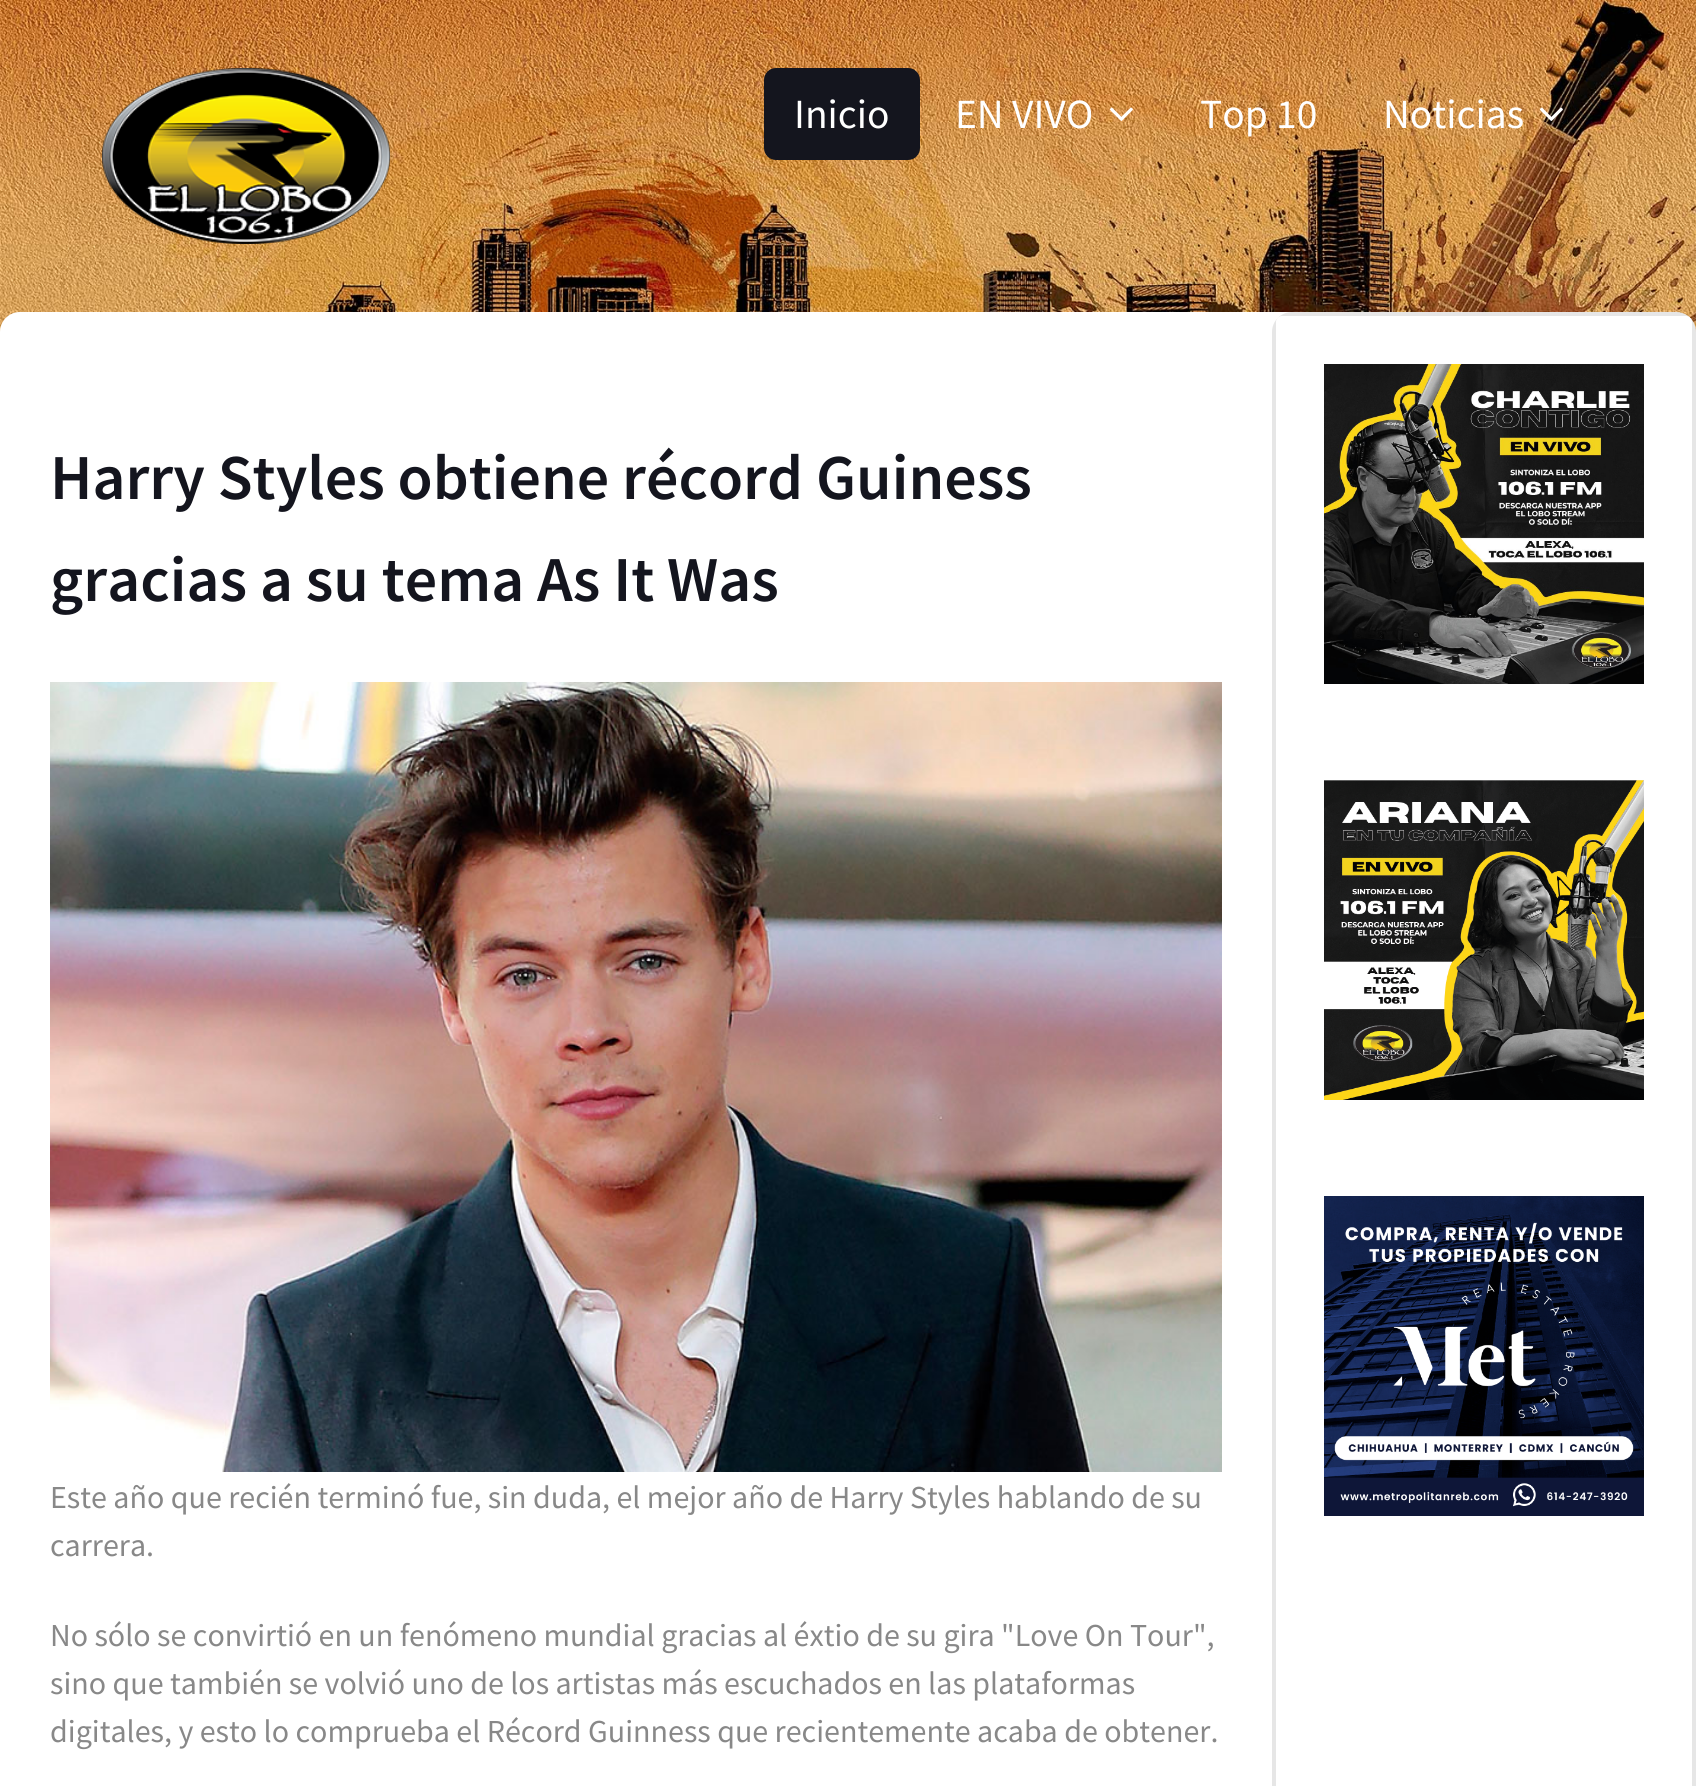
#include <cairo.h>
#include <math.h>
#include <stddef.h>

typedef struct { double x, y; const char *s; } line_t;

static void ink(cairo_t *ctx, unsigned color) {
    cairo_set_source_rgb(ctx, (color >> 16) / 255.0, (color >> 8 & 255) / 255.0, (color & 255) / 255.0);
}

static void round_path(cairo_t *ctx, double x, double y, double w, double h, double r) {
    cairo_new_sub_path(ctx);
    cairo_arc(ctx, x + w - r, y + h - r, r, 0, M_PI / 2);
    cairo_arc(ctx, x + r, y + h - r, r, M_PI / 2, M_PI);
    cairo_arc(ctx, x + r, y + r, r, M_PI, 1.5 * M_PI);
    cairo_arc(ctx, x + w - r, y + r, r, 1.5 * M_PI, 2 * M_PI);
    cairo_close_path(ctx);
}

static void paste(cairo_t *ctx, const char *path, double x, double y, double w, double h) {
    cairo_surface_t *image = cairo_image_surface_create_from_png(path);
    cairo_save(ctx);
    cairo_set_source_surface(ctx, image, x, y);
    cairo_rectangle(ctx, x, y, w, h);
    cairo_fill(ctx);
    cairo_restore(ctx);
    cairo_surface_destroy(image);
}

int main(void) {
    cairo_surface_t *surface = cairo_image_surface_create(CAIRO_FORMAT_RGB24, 1696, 1786);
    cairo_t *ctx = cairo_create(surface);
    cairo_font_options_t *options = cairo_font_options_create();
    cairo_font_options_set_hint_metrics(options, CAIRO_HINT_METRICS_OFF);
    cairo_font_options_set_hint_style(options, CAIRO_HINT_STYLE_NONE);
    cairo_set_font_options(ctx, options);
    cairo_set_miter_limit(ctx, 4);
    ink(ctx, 0xFFFFFF);
    cairo_paint(ctx);
    paste(ctx, "media/1.png", 0, 0, 1696, 332);
    paste(ctx, "media/2.png", 102, 68, 288, 176);
    ink(ctx, 0x14151E);
    round_path(ctx, 764, 68, 156, 92, 12);
    cairo_fill(ctx);
    cairo_select_font_face(ctx, "Source Sans Pro", CAIRO_FONT_SLANT_NORMAL, CAIRO_FONT_WEIGHT_NORMAL);
    cairo_set_font_size(ctx, 41.5);
    ink(ctx, 0xFFFFFF);
    cairo_move_to(ctx, 794, 128);
    cairo_show_text(ctx, "Inicio");
    cairo_move_to(ctx, 955, 128);
    cairo_show_text(ctx, "EN VIVO");
    paste(ctx, "media/3.png", 1109, 107, 24, 14);
    cairo_move_to(ctx, 1200, 128);
    cairo_show_text(ctx, "Top 10");
    cairo_move_to(ctx, 1383, 128);
    cairo_show_text(ctx, "Noticias");
    paste(ctx, "media/4.png", 1539, 107, 24, 14);
    round_path(ctx, 0, 312, 1696, 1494, 20);
    cairo_fill(ctx);
    cairo_select_font_face(ctx, "Source Sans Pro SemiBold", CAIRO_FONT_SLANT_NORMAL, CAIRO_FONT_WEIGHT_NORMAL);
    cairo_set_font_size(ctx, 64);
    ink(ctx, 0x14151E);
    cairo_move_to(ctx, 50, 499);
    cairo_show_text(ctx, "Harry Styles obtiene récord Guiness");
    cairo_move_to(ctx, 50, 601);
    cairo_show_text(ctx, "gracias a su tema As It Was");
    paste(ctx, "media/5.png", 50, 682, 1172, 790);
    cairo_select_font_face(ctx, "Source Sans Pro", CAIRO_FONT_SLANT_NORMAL, CAIRO_FONT_WEIGHT_NORMAL);
    cairo_set_font_size(ctx, 32);
    ink(ctx, 0x888888);
    {
        static const line_t items[] = {
            {50, 1508, "Este año que recién terminó fue, sin duda, el mejor año de Harry Styles hablando de su"},
            {50, 1556, "carrera."},
            {50, 1646, "No sólo se convirtió en un fenómeno mundial gracias al éxtio de su gira \"Love On Tour\","},
            {50, 1694, "sino que también se volvió uno de los artistas más escuchados en las plataformas"},
            {50, 1742, "digitales, y esto lo comprueba el Récord Guinness que recientemente acaba de obtener."},
        };
        for (size_t i = 0; i < sizeof items / sizeof *items; i++) {
            cairo_move_to(ctx, items[i].x, items[i].y);
            cairo_show_text(ctx, items[i].s);
        }
    }
    round_path(ctx, 1274, 314, 420, 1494, 18);
    cairo_set_source_rgba(ctx, 0, 0, 0, 0.1);
    cairo_set_line_width(ctx, 4);
    cairo_stroke(ctx);
    ink(ctx, 0xFFFFFF);
    round_path(ctx, 1276, 316, 416, 416, 6);
    cairo_fill(ctx);
    paste(ctx, "media/6.png", 1324, 364, 320, 320);
    paste(ctx, "media/7.png", 1324, 780, 320, 320);
    paste(ctx, "media/8.png", 1324, 1196, 320, 320);
    cairo_surface_write_to_png(surface, "image.png");
    cairo_font_options_destroy(options);
    cairo_destroy(ctx);
    cairo_surface_destroy(surface);
    return 0;
}
